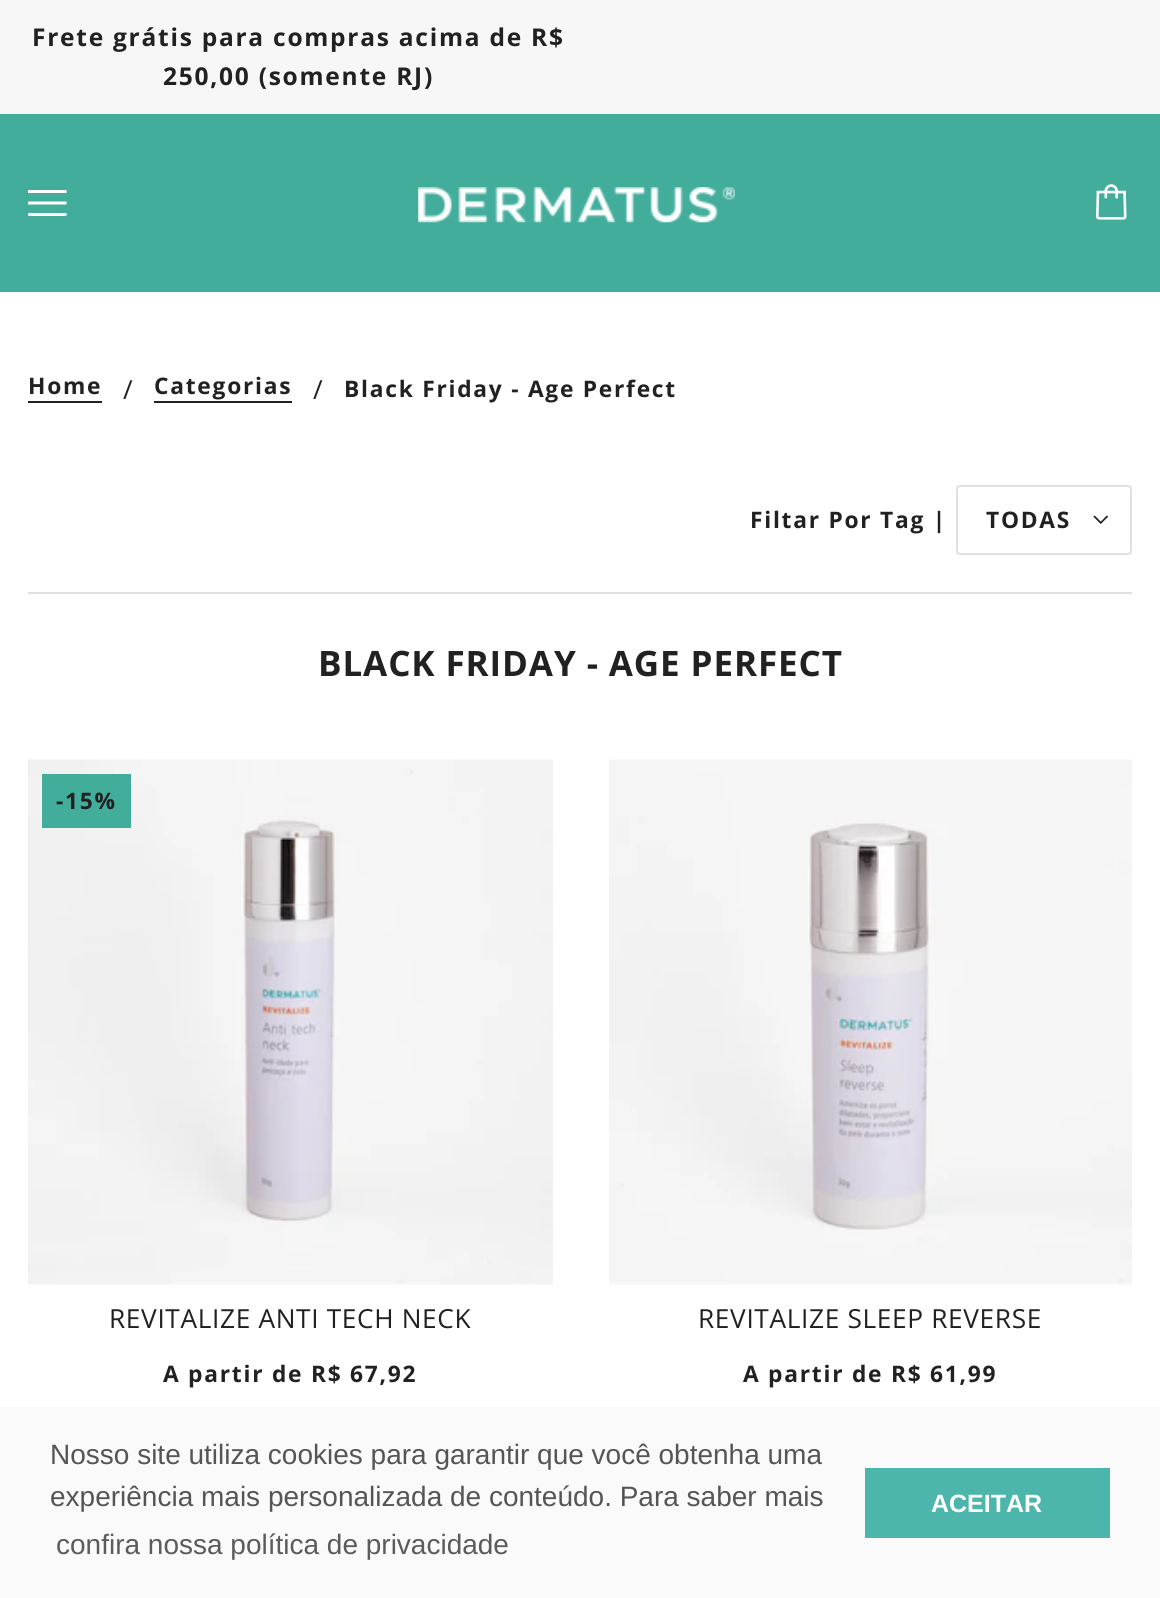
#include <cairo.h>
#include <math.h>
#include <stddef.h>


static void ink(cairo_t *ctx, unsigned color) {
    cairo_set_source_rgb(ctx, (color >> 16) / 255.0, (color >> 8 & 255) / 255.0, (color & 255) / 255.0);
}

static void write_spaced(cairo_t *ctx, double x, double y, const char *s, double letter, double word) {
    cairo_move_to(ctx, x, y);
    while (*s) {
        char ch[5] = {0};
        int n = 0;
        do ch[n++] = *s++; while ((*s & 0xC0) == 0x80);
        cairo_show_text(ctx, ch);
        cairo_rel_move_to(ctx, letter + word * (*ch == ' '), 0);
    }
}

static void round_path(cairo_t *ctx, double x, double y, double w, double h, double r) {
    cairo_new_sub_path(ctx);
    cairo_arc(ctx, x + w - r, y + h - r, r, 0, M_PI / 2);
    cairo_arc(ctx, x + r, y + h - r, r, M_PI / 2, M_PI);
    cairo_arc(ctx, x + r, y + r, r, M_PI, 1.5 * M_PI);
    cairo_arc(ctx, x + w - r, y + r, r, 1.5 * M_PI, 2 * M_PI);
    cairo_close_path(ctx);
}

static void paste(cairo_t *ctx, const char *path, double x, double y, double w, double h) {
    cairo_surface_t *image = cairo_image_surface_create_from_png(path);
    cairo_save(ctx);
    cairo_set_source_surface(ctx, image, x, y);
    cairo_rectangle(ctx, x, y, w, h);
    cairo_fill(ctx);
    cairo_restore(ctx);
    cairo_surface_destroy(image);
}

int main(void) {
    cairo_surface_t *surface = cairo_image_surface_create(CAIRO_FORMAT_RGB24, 1160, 1598);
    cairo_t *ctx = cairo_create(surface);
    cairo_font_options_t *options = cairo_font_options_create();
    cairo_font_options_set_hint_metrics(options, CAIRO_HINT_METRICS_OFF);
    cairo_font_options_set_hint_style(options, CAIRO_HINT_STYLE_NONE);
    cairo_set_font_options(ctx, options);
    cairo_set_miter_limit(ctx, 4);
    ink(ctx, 0xFFFFFF);
    cairo_paint(ctx);
    ink(ctx, 0xF7F7F7);
    cairo_rectangle(ctx, 0, 0, 1160, 114);
    cairo_fill(ctx);
    cairo_select_font_face(ctx, "Open Sans", CAIRO_FONT_SLANT_NORMAL, CAIRO_FONT_WEIGHT_BOLD);
    cairo_set_font_size(ctx, 24.5);
    ink(ctx, 0x212121);
    write_spaced(ctx, 32, 46, "Frete grátis para compras acima de R$", 1.75, 0);
    write_spaced(ctx, 163, 85, "250,00 (somente RJ)", 1.75, 0);
    ink(ctx, 0x43AD9C);
    cairo_rectangle(ctx, 0, 114, 1160, 178);
    cairo_fill(ctx);
    ink(ctx, 0xFFFFFF);
    cairo_new_path(ctx);
    cairo_move_to(ctx, 28, 193);
    cairo_line_to(ctx, 28, 190);
    cairo_line_to(ctx, 66.5, 190);
    cairo_line_to(ctx, 66.5, 193);
    cairo_close_path(ctx);
    cairo_move_to(ctx, 28, 204.5);
    cairo_line_to(ctx, 28, 201.5);
    cairo_line_to(ctx, 66.5, 201.5);
    cairo_line_to(ctx, 66.5, 204.5);
    cairo_close_path(ctx);
    cairo_move_to(ctx, 28, 216);
    cairo_line_to(ctx, 28, 213);
    cairo_line_to(ctx, 66.5, 213);
    cairo_line_to(ctx, 66.5, 216);
    cairo_close_path(ctx);
    cairo_fill(ctx);
    paste(ctx, "media/1.png", 418, 187, 317, 36);
    paste(ctx, "media/2.png", 1096, 184, 31, 36);
    cairo_set_font_size(ctx, 22.75);
    ink(ctx, 0x212121);
    write_spaced(ctx, 28, 394, "Home", 1.75, 0);
    cairo_rectangle(ctx, 28, 401, 74, 2);
    cairo_fill(ctx);
    cairo_select_font_face(ctx, "Open Sans", CAIRO_FONT_SLANT_NORMAL, CAIRO_FONT_WEIGHT_NORMAL);
    cairo_set_font_size(ctx, 26.25);
    cairo_move_to(ctx, 123, 399);
    cairo_show_text(ctx, "/");
    cairo_select_font_face(ctx, "Open Sans", CAIRO_FONT_SLANT_NORMAL, CAIRO_FONT_WEIGHT_BOLD);
    cairo_set_font_size(ctx, 22.75);
    write_spaced(ctx, 154, 394, "Categorias", 1.75, 0);
    cairo_rectangle(ctx, 154, 401, 138, 2);
    cairo_fill(ctx);
    cairo_select_font_face(ctx, "Open Sans", CAIRO_FONT_SLANT_NORMAL, CAIRO_FONT_WEIGHT_NORMAL);
    cairo_set_font_size(ctx, 26.25);
    cairo_move_to(ctx, 313, 399);
    cairo_show_text(ctx, "/");
    cairo_select_font_face(ctx, "Open Sans", CAIRO_FONT_SLANT_NORMAL, CAIRO_FONT_WEIGHT_BOLD);
    cairo_set_font_size(ctx, 22.75);
    write_spaced(ctx, 344, 397, "Black Friday - Age Perfect", 1.75, 0);
    write_spaced(ctx, 750, 528, "Filtar Por Tag |", 1.75, 0);
    round_path(ctx, 957, 486, 174, 68, 3);
    ink(ctx, 0xE0E0E0);
    cairo_stroke(ctx);
    ink(ctx, 0x212121);
    write_spaced(ctx, 986, 528, "TODAS", 1.75, 0);
    paste(ctx, "media/3.png", 1093, 515, 16, 9);
    ink(ctx, 0xE0E0E0);
    cairo_rectangle(ctx, 28, 592, 1104, 2);
    cairo_fill(ctx);
    cairo_set_font_size(ctx, 35);
    ink(ctx, 0x212121);
    write_spaced(ctx, 318, 676, "BLACK FRIDAY - AGE PERFECT", 0.9, 0);
    paste(ctx, "media/4.png", 28, 759, 525, 526);
    ink(ctx, 0x43AD9C);
    cairo_rectangle(ctx, 42, 774, 89, 54);
    cairo_fill(ctx);
    cairo_set_font_size(ctx, 22.75);
    ink(ctx, 0x212121);
    write_spaced(ctx, 56, 809, "-15%", 1.75, 0);
    cairo_select_font_face(ctx, "Open Sans", CAIRO_FONT_SLANT_NORMAL, CAIRO_FONT_WEIGHT_NORMAL);
    cairo_set_font_size(ctx, 26.25);
    write_spaced(ctx, 109, 1328, "REVITALIZE ANTI TECH NECK", 0.65, 0);
    cairo_select_font_face(ctx, "Open Sans", CAIRO_FONT_SLANT_NORMAL, CAIRO_FONT_WEIGHT_BOLD);
    cairo_set_font_size(ctx, 22.75);
    write_spaced(ctx, 163, 1382, "A partir de R$ 67,92", 1.75, 0);
    paste(ctx, "media/5.png", 609, 759, 523, 526);
    cairo_select_font_face(ctx, "Open Sans", CAIRO_FONT_SLANT_NORMAL, CAIRO_FONT_WEIGHT_NORMAL);
    cairo_set_font_size(ctx, 26.25);
    write_spaced(ctx, 698, 1328, "REVITALIZE SLEEP REVERSE", 0.65, 0);
    cairo_select_font_face(ctx, "Open Sans", CAIRO_FONT_SLANT_NORMAL, CAIRO_FONT_WEIGHT_BOLD);
    cairo_set_font_size(ctx, 22.75);
    write_spaced(ctx, 743, 1382, "A partir de R$ 61,99", 1.75, 0);
    ink(ctx, 0xFAFAFA);
    cairo_rectangle(ctx, 0, 1407, 1160, 191);
    cairo_fill(ctx);
    cairo_select_font_face(ctx, "Liberation Sans", CAIRO_FONT_SLANT_NORMAL, CAIRO_FONT_WEIGHT_NORMAL);
    cairo_set_font_size(ctx, 28);
    ink(ctx, 0x555555);
    cairo_move_to(ctx, 50, 1464);
    cairo_show_text(ctx, "Nosso site utiliza cookies para garantir que você obtenha uma");
    cairo_move_to(ctx, 50, 1506);
    cairo_show_text(ctx, "experiência mais personalizada de conteúdo. Para saber mais");
    ink(ctx, 0x5B5B5B);
    cairo_move_to(ctx, 56, 1554);
    cairo_show_text(ctx, "confira nossa política de privacidade");
    ink(ctx, 0x4DB6AC);
    cairo_rectangle(ctx, 865, 1468, 245, 70);
    cairo_fill(ctx);
    cairo_select_font_face(ctx, "Liberation Sans", CAIRO_FONT_SLANT_NORMAL, CAIRO_FONT_WEIGHT_BOLD);
    cairo_set_font_size(ctx, 25);
    ink(ctx, 0xFFFFFF);
    cairo_move_to(ctx, 931, 1512);
    cairo_show_text(ctx, "ACEITAR");
    cairo_surface_write_to_png(surface, "image.png");
    cairo_font_options_destroy(options);
    cairo_destroy(ctx);
    cairo_surface_destroy(surface);
    return 0;
}
